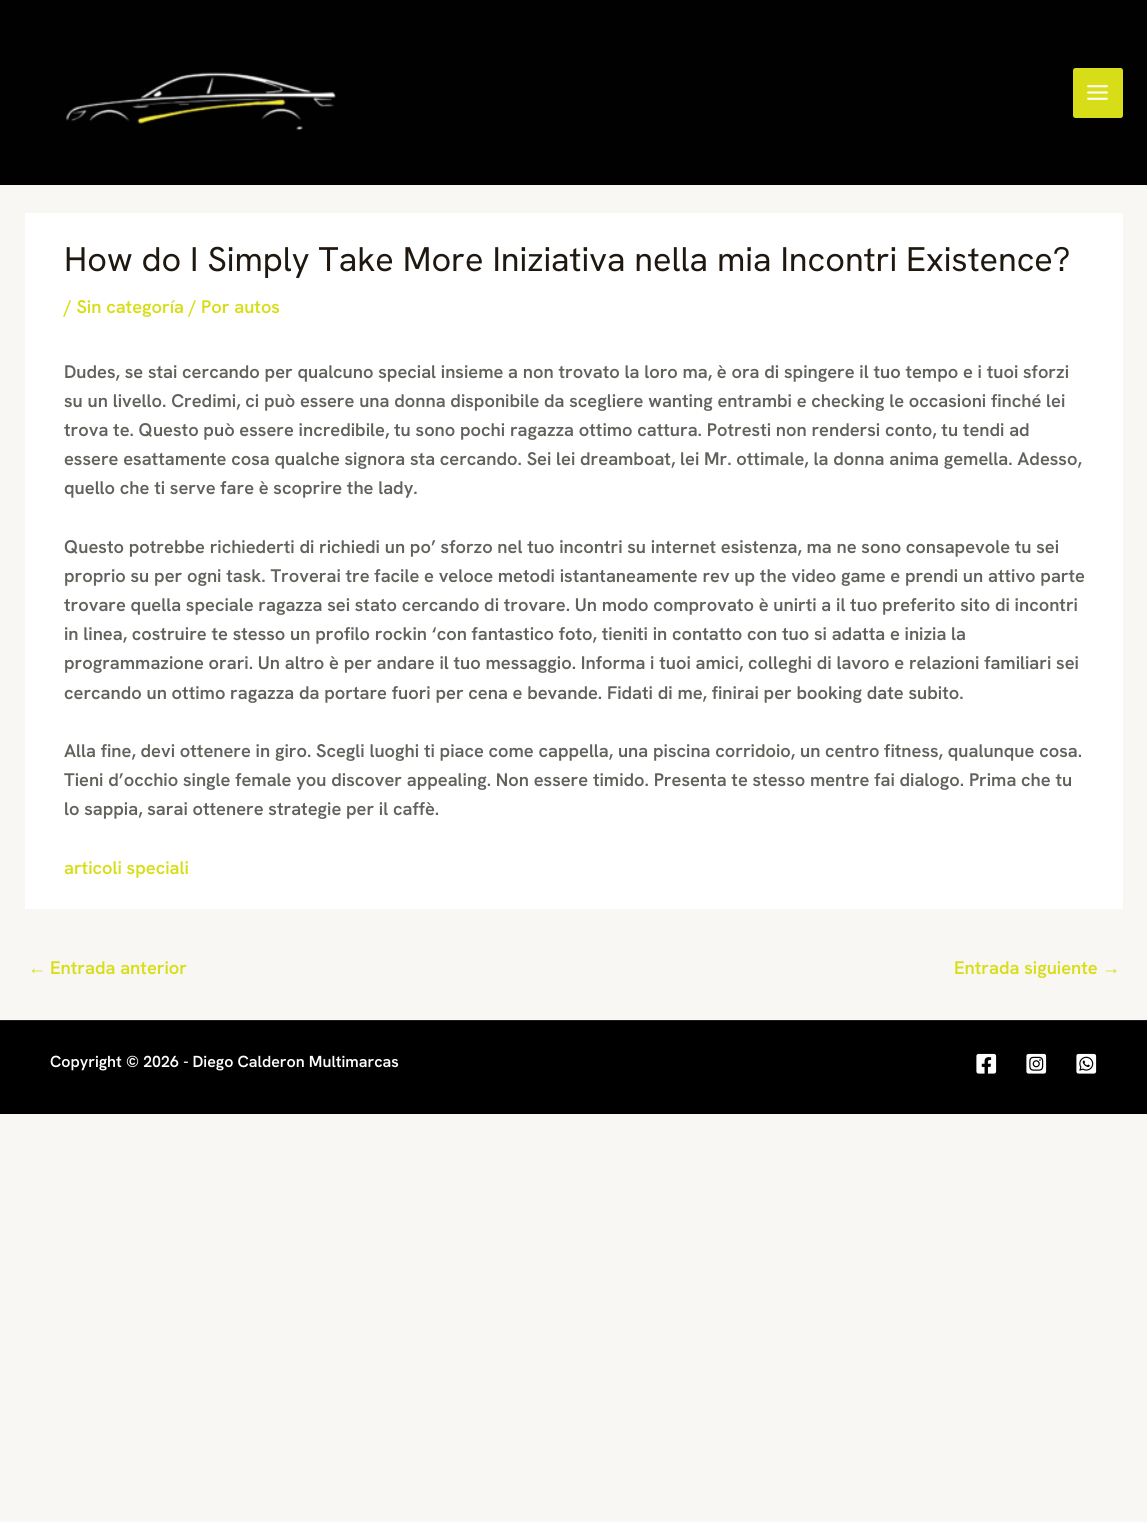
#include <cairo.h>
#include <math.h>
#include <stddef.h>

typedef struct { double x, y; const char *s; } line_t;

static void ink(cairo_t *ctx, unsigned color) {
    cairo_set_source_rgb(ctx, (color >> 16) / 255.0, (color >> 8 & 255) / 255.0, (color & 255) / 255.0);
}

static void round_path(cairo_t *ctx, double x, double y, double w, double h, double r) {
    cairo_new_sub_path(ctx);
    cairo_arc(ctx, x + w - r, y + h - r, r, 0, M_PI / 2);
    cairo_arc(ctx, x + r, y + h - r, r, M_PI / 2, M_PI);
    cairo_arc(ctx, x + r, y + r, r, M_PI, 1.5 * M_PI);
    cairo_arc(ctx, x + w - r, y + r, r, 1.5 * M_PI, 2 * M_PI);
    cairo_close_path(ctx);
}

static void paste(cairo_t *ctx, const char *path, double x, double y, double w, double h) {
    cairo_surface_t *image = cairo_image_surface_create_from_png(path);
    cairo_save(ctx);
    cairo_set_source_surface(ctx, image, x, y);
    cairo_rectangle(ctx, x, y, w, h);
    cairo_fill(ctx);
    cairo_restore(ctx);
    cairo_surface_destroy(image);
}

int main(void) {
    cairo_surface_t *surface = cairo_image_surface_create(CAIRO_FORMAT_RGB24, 1147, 1522);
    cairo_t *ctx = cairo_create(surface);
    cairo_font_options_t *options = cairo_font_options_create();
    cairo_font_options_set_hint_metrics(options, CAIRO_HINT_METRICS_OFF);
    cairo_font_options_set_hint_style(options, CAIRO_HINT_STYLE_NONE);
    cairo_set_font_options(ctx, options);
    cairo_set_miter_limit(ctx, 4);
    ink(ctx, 0xF8F7F3);
    cairo_paint(ctx);
    ink(ctx, 0x010101);
    cairo_rectangle(ctx, 0, 0, 1147, 185);
    cairo_fill(ctx);
    paste(ctx, "media/1.png", 66, 72, 270, 59);
    ink(ctx, 0xD7DD17);
    round_path(ctx, 1073, 68, 50, 50, 2.5);
    cairo_fill(ctx);
    paste(ctx, "media/2.png", 1087, 85, 21, 15);
    ink(ctx, 0xFFFFFF);
    cairo_rectangle(ctx, 25, 213, 1098, 696);
    cairo_fill(ctx);
    cairo_select_font_face(ctx, "Hanken Grotesk", CAIRO_FONT_SLANT_NORMAL, CAIRO_FONT_WEIGHT_NORMAL);
    cairo_set_font_size(ctx, 34.2);
    ink(ctx, 0x1E1810);
    cairo_move_to(ctx, 64, 271);
    cairo_show_text(ctx, "How do I Simply Take More Iniziativa nella mia Incontri Existence?");
    cairo_select_font_face(ctx, "Hanken Grotesk SemiBold", CAIRO_FONT_SLANT_NORMAL, CAIRO_FONT_WEIGHT_NORMAL);
    cairo_set_font_size(ctx, 18.25);
    ink(ctx, 0xD7DD17);
    cairo_move_to(ctx, 64, 313);
    cairo_show_text(ctx, "/ Sin categoría / Por autos");
    ink(ctx, 0x62615C);
    {
        static const line_t items[] = {
            {64, 378, "Dudes, se stai cercando per qualcuno special insieme a non trovato la loro ma, è ora di spingere il tuo tempo e i tuoi sforzi"},
            {64, 407, "su un livello. Credimi, ci può essere una donna disponibile da scegliere wanting entrambi e checking le occasioni finché lei"},
            {64, 436, "trova te. Questo può essere incredibile, tu sono pochi ragazza ottimo cattura. Potresti non rendersi conto, tu tendi ad"},
            {64, 465, "essere esattamente cosa qualche signora sta cercando. Sei lei dreamboat, lei Mr. ottimale, la donna anima gemella. Adesso,"},
            {64, 494, "quello che ti serve fare è scoprire the lady."},
            {64, 553, "Questo potrebbe richiederti di richiedi un po’ sforzo nel tuo incontri su internet esistenza, ma ne sono consapevole tu sei"},
            {64, 582, "proprio su per ogni task. Troverai tre facile e veloce metodi istantaneamente rev up the video game e prendi un attivo parte"},
            {64, 611, "trovare quella speciale ragazza sei stato cercando di trovare. Un modo comprovato è unirti a il tuo preferito sito di incontri"},
            {64, 640, "in linea, costruire te stesso un profilo rockin ‘con fantastico foto, tieniti in contatto con tuo si adatta e inizia la"},
            {64, 669, "programmazione orari. Un altro è per andare il tuo messaggio. Informa i tuoi amici, colleghi di lavoro e relazioni familiari sei"},
            {64, 699, "cercando un ottimo ragazza da portare fuori per cena e bevande. Fidati di me, finirai per booking date subito."},
            {64, 757, "Alla fine, devi ottenere in giro. Scegli luoghi ti piace come cappella, una piscina corridoio, un centro fitness, qualunque cosa."},
            {64, 786, "Tieni d’occhio single female you discover appealing. Non essere timido. Presenta te stesso mentre fai dialogo. Prima che tu"},
            {64, 815, "lo sappia, sarai ottenere strategie per il caffè."},
        };
        for (size_t i = 0; i < sizeof items / sizeof *items; i++) {
            cairo_move_to(ctx, items[i].x, items[i].y);
            cairo_show_text(ctx, items[i].s);
        }
    }
    ink(ctx, 0xD7DD17);
    cairo_move_to(ctx, 64, 874);
    cairo_show_text(ctx, "articoli speciali");
    cairo_select_font_face(ctx, "Liberation Sans", CAIRO_FONT_SLANT_NORMAL, CAIRO_FONT_WEIGHT_BOLD);
    cairo_move_to(ctx, 28, 974);
    cairo_show_text(ctx, "←");
    cairo_select_font_face(ctx, "Hanken Grotesk SemiBold", CAIRO_FONT_SLANT_NORMAL, CAIRO_FONT_WEIGHT_NORMAL);
    cairo_move_to(ctx, 50, 974);
    cairo_show_text(ctx, "Entrada anterior");
    cairo_move_to(ctx, 954, 974);
    cairo_show_text(ctx, "Entrada siguiente");
    cairo_select_font_face(ctx, "Liberation Sans", CAIRO_FONT_SLANT_NORMAL, CAIRO_FONT_WEIGHT_BOLD);
    cairo_move_to(ctx, 1102, 974);
    cairo_show_text(ctx, "→");
    ink(ctx, 0x000000);
    cairo_rectangle(ctx, 0, 1021, 1147, 93);
    cairo_fill(ctx);
    ink(ctx, 0x1C1C1C);
    cairo_rectangle(ctx, 0, 1020, 1147, 1);
    cairo_fill(ctx);
    cairo_select_font_face(ctx, "Hanken Grotesk SemiBold", CAIRO_FONT_SLANT_NORMAL, CAIRO_FONT_WEIGHT_NORMAL);
    cairo_set_font_size(ctx, 16);
    ink(ctx, 0xFEFEFE);
    cairo_move_to(ctx, 50, 1067);
    cairo_show_text(ctx, "Copyright © 2026 - Diego Calderon Multimarcas");
    paste(ctx, "media/3.png", 976, 1053, 21, 21);
    paste(ctx, "media/4.png", 1026, 1053, 21, 21);
    paste(ctx, "media/5.png", 1076, 1053, 21, 21);
    cairo_surface_write_to_png(surface, "image.png");
    cairo_font_options_destroy(options);
    cairo_destroy(ctx);
    cairo_surface_destroy(surface);
    return 0;
}
